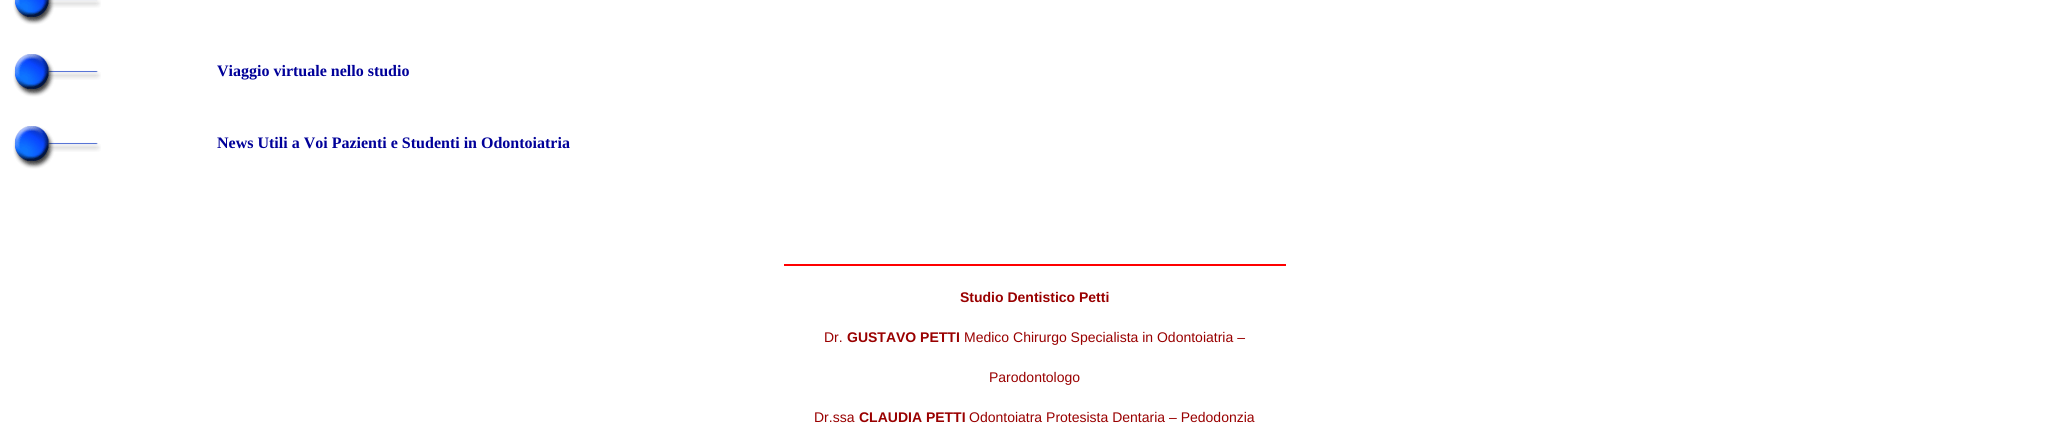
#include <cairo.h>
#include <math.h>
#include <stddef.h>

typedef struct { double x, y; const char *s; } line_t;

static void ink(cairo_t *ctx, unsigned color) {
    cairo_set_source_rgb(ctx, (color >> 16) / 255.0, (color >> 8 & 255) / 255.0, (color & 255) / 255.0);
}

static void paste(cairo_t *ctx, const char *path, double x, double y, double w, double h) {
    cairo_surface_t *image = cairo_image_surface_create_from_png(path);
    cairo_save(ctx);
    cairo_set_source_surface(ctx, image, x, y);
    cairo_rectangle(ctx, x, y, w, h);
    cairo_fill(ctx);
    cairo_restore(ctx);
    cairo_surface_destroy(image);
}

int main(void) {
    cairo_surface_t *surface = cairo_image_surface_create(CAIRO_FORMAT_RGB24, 2069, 424);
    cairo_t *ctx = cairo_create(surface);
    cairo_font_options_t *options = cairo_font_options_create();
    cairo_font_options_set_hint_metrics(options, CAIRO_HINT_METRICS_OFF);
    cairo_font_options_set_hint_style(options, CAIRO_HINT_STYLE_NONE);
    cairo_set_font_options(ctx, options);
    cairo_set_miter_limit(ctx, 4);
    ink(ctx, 0xFFFFFF);
    cairo_paint(ctx);
    paste(ctx, "media/1.png", 13, 0, 88, 25);
    paste(ctx, "media/2.png", 13, 54, 88, 43);
    cairo_select_font_face(ctx, "Liberation Serif", CAIRO_FONT_SLANT_NORMAL, CAIRO_FONT_WEIGHT_BOLD);
    cairo_set_font_size(ctx, 16);
    ink(ctx, 0x000099);
    cairo_move_to(ctx, 217, 76);
    cairo_show_text(ctx, "Viaggio virtuale nello studio");
    paste(ctx, "media/2.png", 13, 126, 88, 43);
    cairo_move_to(ctx, 217, 148);
    cairo_show_text(ctx, "News Utili a Voi Pazienti e Studenti in Odontoiatria");
    ink(ctx, 0xFF0000);
    cairo_rectangle(ctx, 784, 264, 502, 2);
    cairo_fill(ctx);
    cairo_select_font_face(ctx, "Liberation Sans", CAIRO_FONT_SLANT_NORMAL, CAIRO_FONT_WEIGHT_BOLD);
    cairo_set_font_size(ctx, 14);
    ink(ctx, 0x990000);
    cairo_move_to(ctx, 960, 302);
    cairo_show_text(ctx, "Studio Dentistico Petti");
    cairo_select_font_face(ctx, "Liberation Sans", CAIRO_FONT_SLANT_NORMAL, CAIRO_FONT_WEIGHT_NORMAL);
    cairo_move_to(ctx, 824, 342);
    cairo_show_text(ctx, "Dr.");
    cairo_select_font_face(ctx, "Liberation Sans", CAIRO_FONT_SLANT_NORMAL, CAIRO_FONT_WEIGHT_BOLD);
    cairo_move_to(ctx, 847, 342);
    cairo_show_text(ctx, "GUSTAVO PETTI");
    cairo_select_font_face(ctx, "Liberation Sans", CAIRO_FONT_SLANT_NORMAL, CAIRO_FONT_WEIGHT_NORMAL);
    {
        static const line_t items[] = {
            {964, 342, "Medico Chirurgo Specialista in Odontoiatria –"},
            {989, 382, "Parodontologo"},
            {814, 422, "Dr.ssa"},
        };
        for (size_t i = 0; i < sizeof items / sizeof *items; i++) {
            cairo_move_to(ctx, items[i].x, items[i].y);
            cairo_show_text(ctx, items[i].s);
        }
    }
    cairo_select_font_face(ctx, "Liberation Sans", CAIRO_FONT_SLANT_NORMAL, CAIRO_FONT_WEIGHT_BOLD);
    cairo_move_to(ctx, 859, 422);
    cairo_show_text(ctx, "CLAUDIA PETTI");
    cairo_select_font_face(ctx, "Liberation Sans", CAIRO_FONT_SLANT_NORMAL, CAIRO_FONT_WEIGHT_NORMAL);
    cairo_move_to(ctx, 969, 422);
    cairo_show_text(ctx, "Odontoiatra Protesista Dentaria – Pedodonzia");
    cairo_surface_write_to_png(surface, "image.png");
    cairo_font_options_destroy(options);
    cairo_destroy(ctx);
    cairo_surface_destroy(surface);
    return 0;
}
